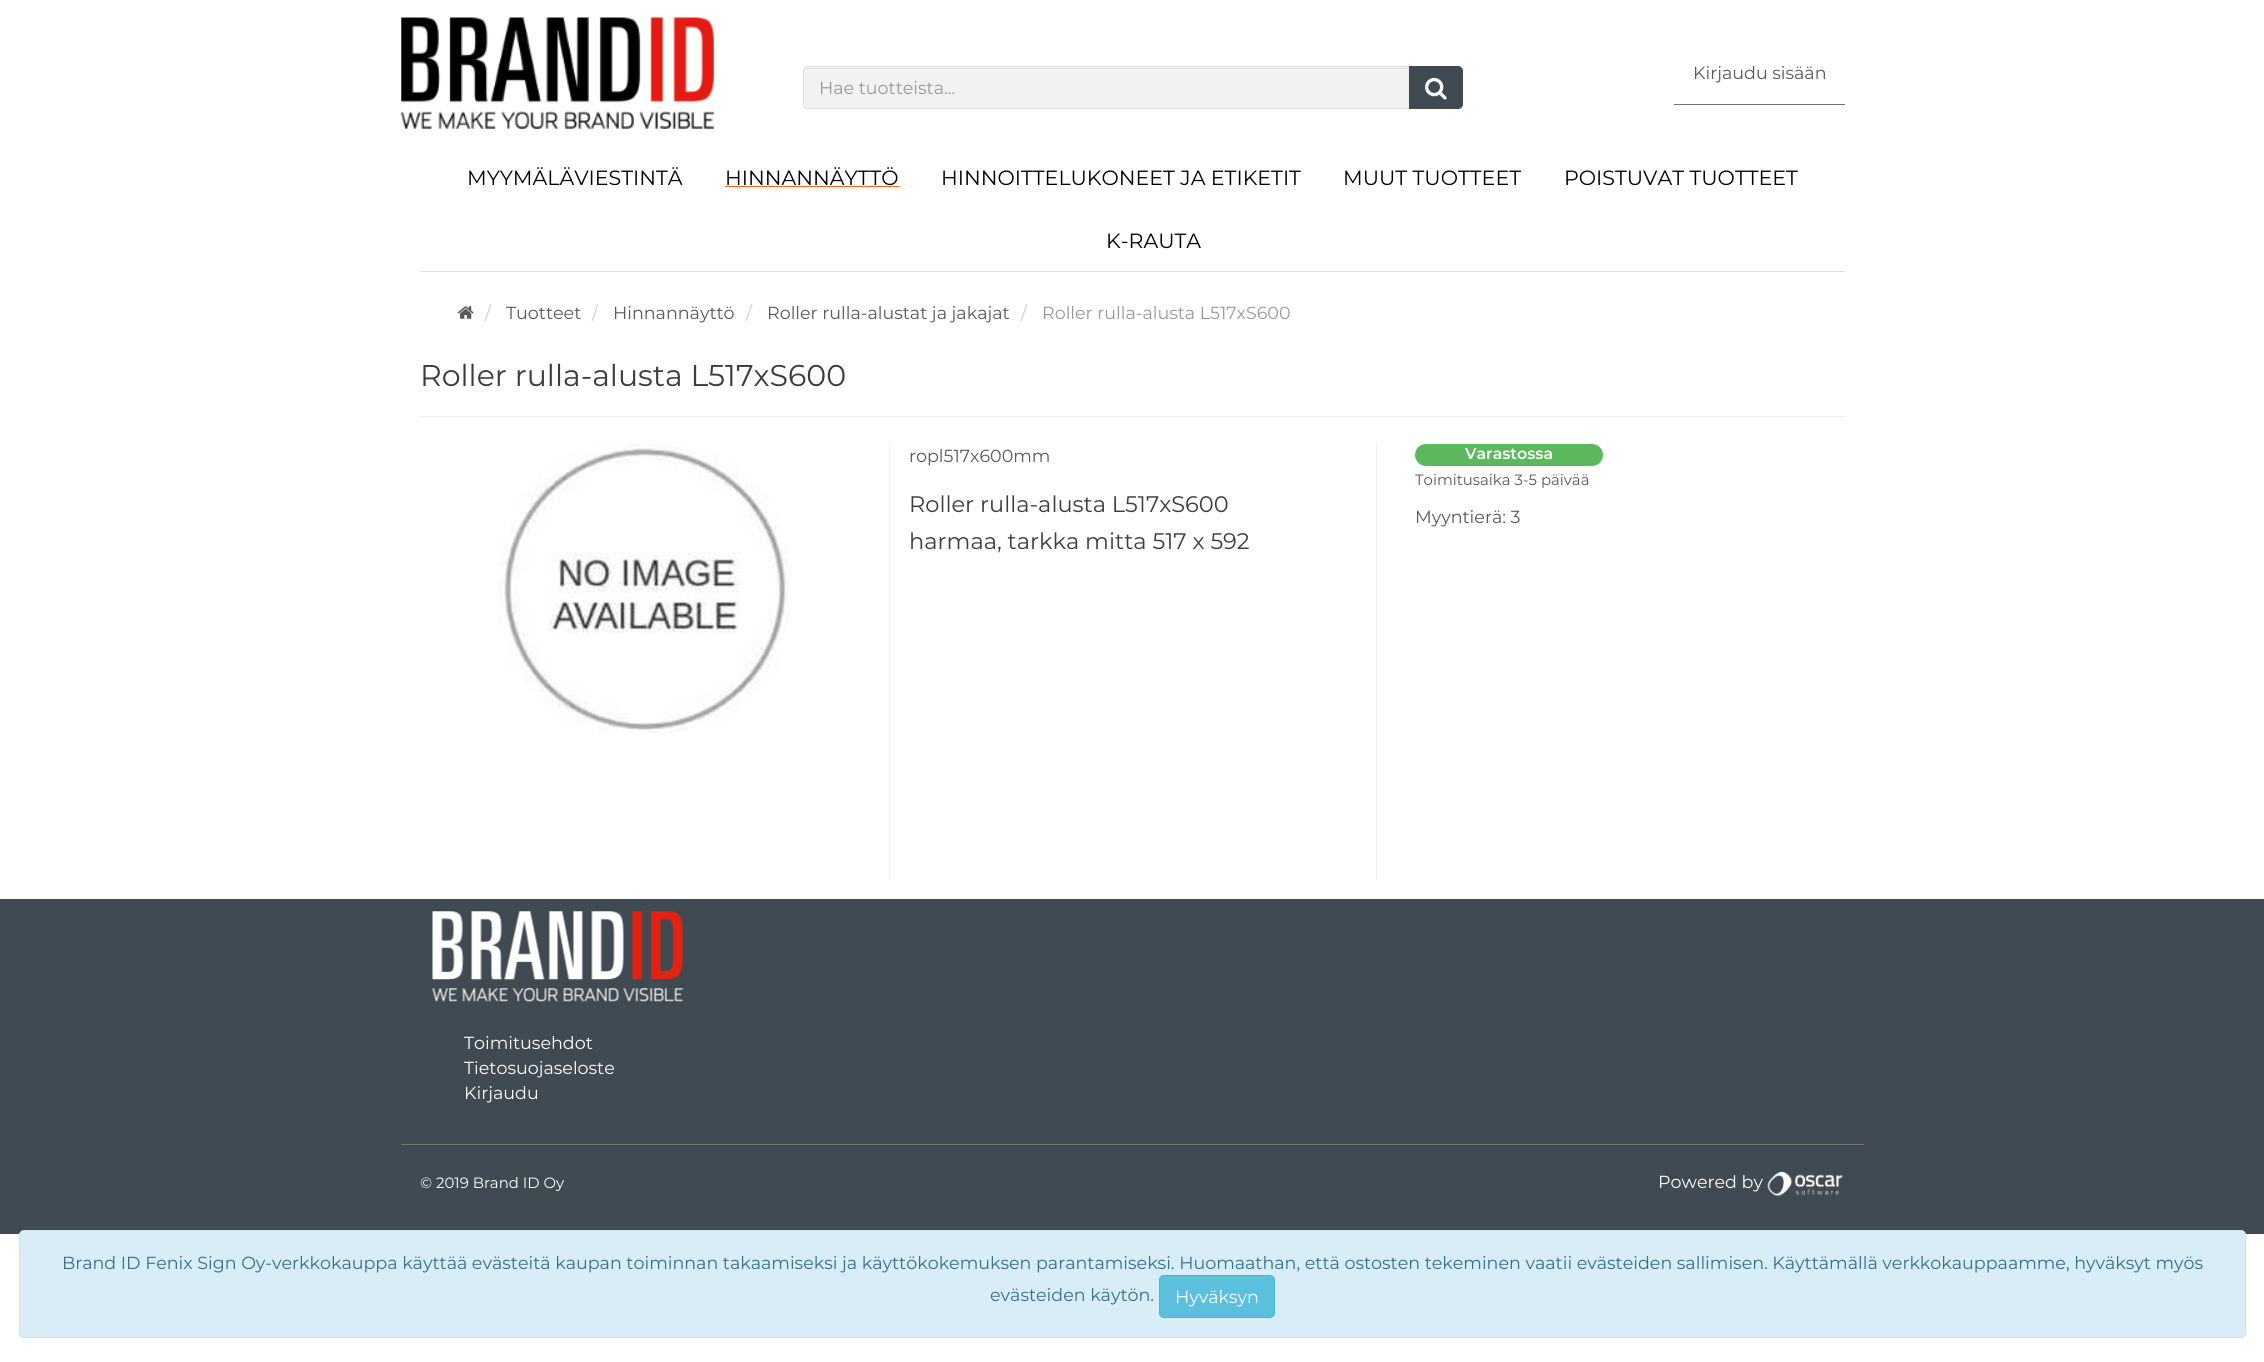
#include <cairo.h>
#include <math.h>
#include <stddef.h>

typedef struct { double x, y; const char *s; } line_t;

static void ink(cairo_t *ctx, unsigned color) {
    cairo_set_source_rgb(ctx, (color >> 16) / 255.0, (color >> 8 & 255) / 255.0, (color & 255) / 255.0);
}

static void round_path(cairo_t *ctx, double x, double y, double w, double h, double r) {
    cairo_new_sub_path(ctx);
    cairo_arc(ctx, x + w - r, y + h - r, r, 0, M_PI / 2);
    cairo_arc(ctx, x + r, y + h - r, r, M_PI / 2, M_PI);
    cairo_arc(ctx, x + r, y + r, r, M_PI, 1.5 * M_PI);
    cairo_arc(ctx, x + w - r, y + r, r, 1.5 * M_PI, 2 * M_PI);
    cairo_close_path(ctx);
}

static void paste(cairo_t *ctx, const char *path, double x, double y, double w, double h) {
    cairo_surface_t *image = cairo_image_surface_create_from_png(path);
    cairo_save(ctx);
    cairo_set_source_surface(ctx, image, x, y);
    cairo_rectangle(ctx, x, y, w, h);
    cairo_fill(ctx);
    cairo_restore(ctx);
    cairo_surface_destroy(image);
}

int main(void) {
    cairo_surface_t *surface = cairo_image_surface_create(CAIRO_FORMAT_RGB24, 2264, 1362);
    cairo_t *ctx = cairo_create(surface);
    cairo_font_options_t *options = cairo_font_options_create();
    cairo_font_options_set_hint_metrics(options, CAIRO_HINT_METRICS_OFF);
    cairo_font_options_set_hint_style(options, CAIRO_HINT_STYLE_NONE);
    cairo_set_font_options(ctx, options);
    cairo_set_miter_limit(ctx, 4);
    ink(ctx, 0xFFFFFF);
    cairo_paint(ctx);
    paste(ctx, "media/1.png", 401, 17, 313, 112);
    ink(ctx, 0x707070);
    cairo_rectangle(ctx, 1674, 104, 171, 1);
    cairo_fill(ctx);
    cairo_select_font_face(ctx, "Montserrat", CAIRO_FONT_SLANT_NORMAL, CAIRO_FONT_WEIGHT_NORMAL);
    cairo_set_font_size(ctx, 17.5);
    ink(ctx, 0x595959);
    cairo_move_to(ctx, 1693, 79);
    cairo_show_text(ctx, "Kirjaudu sisään");
    ink(ctx, 0xF2F2F2);
    cairo_new_path(ctx);
    cairo_move_to(ctx, 808, 66);
    cairo_line_to(ctx, 1410, 66);
    cairo_line_to(ctx, 1410, 109);
    cairo_line_to(ctx, 808, 109);
    cairo_curve_to(ctx, 805, 109, 803, 107, 803, 104);
    cairo_line_to(ctx, 803, 71);
    cairo_curve_to(ctx, 803, 68, 805, 66, 808, 66);
    cairo_close_path(ctx);
    cairo_fill(ctx);
    ink(ctx, 0xE0E0E0);
    cairo_new_path(ctx);
    cairo_move_to(ctx, 808, 69);
    cairo_line_to(ctx, 1409, 69);
    cairo_line_to(ctx, 1409, 68);
    cairo_line_to(ctx, 808, 68);
    cairo_curve_to(ctx, 806, 68, 805, 69, 804, 70);
    cairo_curve_to(ctx, 805, 69, 806, 69, 808, 69);
    cairo_close_path(ctx);
    cairo_fill(ctx);
    cairo_new_path(ctx);
    cairo_move_to(ctx, 808, 66.5);
    cairo_line_to(ctx, 1409.5, 66.5);
    cairo_line_to(ctx, 1409.5, 108.5);
    cairo_line_to(ctx, 808, 108.5);
    cairo_curve_to(ctx, 805.5, 108.5, 803.5, 106.5, 803.5, 104);
    cairo_line_to(ctx, 803.5, 71);
    cairo_curve_to(ctx, 803.5, 68.5, 805.5, 66.5, 808, 66.5);
    cairo_close_path(ctx);
    ink(ctx, 0xDDDDDD);
    cairo_set_line_width(ctx, 1);
    cairo_stroke(ctx);
    ink(ctx, 0x999999);
    cairo_move_to(ctx, 819, 94);
    cairo_show_text(ctx, "Hae tuotteista...");
    ink(ctx, 0x3F4A53);
    cairo_new_path(ctx);
    cairo_move_to(ctx, 1409.5, 66.5);
    cairo_line_to(ctx, 1458, 66.5);
    cairo_curve_to(ctx, 1460.5, 66.5, 1462.5, 68.5, 1462.5, 71);
    cairo_line_to(ctx, 1462.5, 104);
    cairo_curve_to(ctx, 1462.5, 106.5, 1460.5, 108.5, 1458, 108.5);
    cairo_line_to(ctx, 1409.5, 108.5);
    cairo_close_path(ctx);
    cairo_fill_preserve(ctx);
    cairo_stroke(ctx);
    paste(ctx, "media/2.png", 1425, 77, 22, 23);
    cairo_set_font_size(ctx, 20.6);
    ink(ctx, 0x000000);
    cairo_move_to(ctx, 467, 185);
    cairo_show_text(ctx, "MYYMÄLÄVIESTINTÄ");
    cairo_move_to(ctx, 725, 185);
    cairo_show_text(ctx, "HINNANNÄYTTÖ");
    ink(ctx, 0xFF670C);
    cairo_rectangle(ctx, 725, 186, 174, 1);
    cairo_fill(ctx);
    ink(ctx, 0x000000);
    {
        static const line_t items[] = {
            {941, 185, "HINNOITTELUKONEET JA ETIKETIT"},
            {1343, 185, "MUUT TUOTTEET"},
            {1564, 185, "POISTUVAT TUOTTEET"},
            {1106, 248, "K-RAUTA"},
        };
        for (size_t i = 0; i < sizeof items / sizeof *items; i++) {
            cairo_move_to(ctx, items[i].x, items[i].y);
            cairo_show_text(ctx, items[i].s);
        }
    }
    ink(ctx, 0xDDDDDD);
    cairo_rectangle(ctx, 420, 271, 1425, 1);
    cairo_fill(ctx);
    paste(ctx, "media/3.png", 457, 306, 17, 13);
    cairo_set_font_size(ctx, 17.5);
    ink(ctx, 0xCCCCCC);
    cairo_move_to(ctx, 485, 319);
    cairo_show_text(ctx, "/");
    ink(ctx, 0x595959);
    cairo_move_to(ctx, 506, 319);
    cairo_show_text(ctx, "Tuotteet");
    ink(ctx, 0xCCCCCC);
    cairo_move_to(ctx, 592, 319);
    cairo_show_text(ctx, "/");
    ink(ctx, 0x595959);
    cairo_move_to(ctx, 613, 319);
    cairo_show_text(ctx, "Hinnannäyttö");
    ink(ctx, 0xCCCCCC);
    cairo_move_to(ctx, 746, 319);
    cairo_show_text(ctx, "/");
    ink(ctx, 0x595959);
    cairo_move_to(ctx, 767, 319);
    cairo_show_text(ctx, "Roller rulla-alustat ja jakajat");
    ink(ctx, 0xCCCCCC);
    cairo_move_to(ctx, 1021, 319);
    cairo_show_text(ctx, "/");
    ink(ctx, 0x999999);
    cairo_move_to(ctx, 1042, 319);
    cairo_show_text(ctx, "Roller rulla-alusta L517xS600");
    ink(ctx, 0xEEEEEE);
    cairo_rectangle(ctx, 420, 416, 1425, 1);
    cairo_fill(ctx);
    cairo_set_font_size(ctx, 30);
    ink(ctx, 0x3C3C3C);
    cairo_move_to(ctx, 420, 386);
    cairo_show_text(ctx, "Roller rulla-alusta L517xS600");
    paste(ctx, "media/4.png", 499, 442, 290, 291);
    ink(ctx, 0xEEEEEE);
    cairo_rectangle(ctx, 889, 443, 1, 437);
    cairo_fill(ctx);
    cairo_set_font_size(ctx, 17.5);
    ink(ctx, 0x595959);
    cairo_move_to(ctx, 909, 462);
    cairo_show_text(ctx, "ropl517x600mm");
    cairo_set_font_size(ctx, 22.5);
    ink(ctx, 0x3C3C3C);
    cairo_move_to(ctx, 909, 512);
    cairo_show_text(ctx, "Roller rulla-alusta L517xS600");
    cairo_move_to(ctx, 909, 549);
    cairo_show_text(ctx, "harmaa, tarkka mitta 517 x 592");
    ink(ctx, 0xEEEEEE);
    cairo_rectangle(ctx, 1376, 443, 1, 437);
    cairo_fill(ctx);
    ink(ctx, 0x5CB85C);
    round_path(ctx, 1415, 444, 188, 22, 11);
    cairo_fill(ctx);
    cairo_select_font_face(ctx, "Montserrat SemiBold", CAIRO_FONT_SLANT_NORMAL, CAIRO_FONT_WEIGHT_NORMAL);
    cairo_set_font_size(ctx, 15.75);
    ink(ctx, 0xFFFFFF);
    cairo_move_to(ctx, 1465, 459);
    cairo_show_text(ctx, "Varastossa");
    cairo_select_font_face(ctx, "Montserrat", CAIRO_FONT_SLANT_NORMAL, CAIRO_FONT_WEIGHT_NORMAL);
    cairo_set_font_size(ctx, 14.9);
    ink(ctx, 0x595959);
    cairo_move_to(ctx, 1415, 485);
    cairo_show_text(ctx, "Toimitusaika 3-5 päivää");
    cairo_set_font_size(ctx, 17.5);
    cairo_move_to(ctx, 1415, 523);
    cairo_show_text(ctx, "Myyntierä: 3");
    ink(ctx, 0x3F4A53);
    cairo_rectangle(ctx, 0, 899, 2264, 335);
    cairo_fill(ctx);
    paste(ctx, "media/5.png", 432, 911, 251, 91);
    ink(ctx, 0xFFFFFF);
    {
        static const line_t items[] = {
            {464, 1049, "Toimitusehdot"},
            {464, 1074, "Tietosuojaseloste"},
            {464, 1099, "Kirjaudu"},
        };
        for (size_t i = 0; i < sizeof items / sizeof *items; i++) {
            cairo_move_to(ctx, items[i].x, items[i].y);
            cairo_show_text(ctx, items[i].s);
        }
    }
    ink(ctx, 0x707070);
    cairo_rectangle(ctx, 401, 1144, 1463, 1);
    cairo_fill(ctx);
    cairo_set_font_size(ctx, 14.9);
    ink(ctx, 0xFFFFFF);
    cairo_move_to(ctx, 420, 1188);
    cairo_show_text(ctx, "© 2019 Brand ID Oy");
    cairo_set_font_size(ctx, 17.5);
    cairo_move_to(ctx, 1658, 1188);
    cairo_show_text(ctx, "Powered by");
    paste(ctx, "media/6.png", 1767, 1171, 76, 26);
    ink(ctx, 0xD9EDF7);
    round_path(ctx, 19.5, 1230.5, 2226, 107, 4.5);
    cairo_fill_preserve(ctx);
    ink(ctx, 0xBCE8F1);
    cairo_stroke(ctx);
    ink(ctx, 0x31708F);
    cairo_move_to(ctx, 62, 1269);
    cairo_show_text(ctx, "Brand ID Fenix Sign Oy-verkkokauppa käyttää evästeitä kaupan toiminnan takaamiseksi ja käyttökokemuksen parantamiseksi. Huomaathan, että ostosten tekeminen vaatii evästeiden sallimisen. Käyttämällä verkkokauppaamme, hyväksyt myös");
    cairo_move_to(ctx, 990, 1301);
    cairo_show_text(ctx, "evästeiden käytön.");
    ink(ctx, 0x5BC0DE);
    round_path(ctx, 1159.5, 1275.5, 115, 42, 4.5);
    cairo_fill_preserve(ctx);
    ink(ctx, 0x46B8DA);
    cairo_stroke(ctx);
    ink(ctx, 0xFFFFFF);
    cairo_move_to(ctx, 1175, 1303);
    cairo_show_text(ctx, "Hyväksyn");
    cairo_surface_write_to_png(surface, "image.png");
    cairo_font_options_destroy(options);
    cairo_destroy(ctx);
    cairo_surface_destroy(surface);
    return 0;
}
